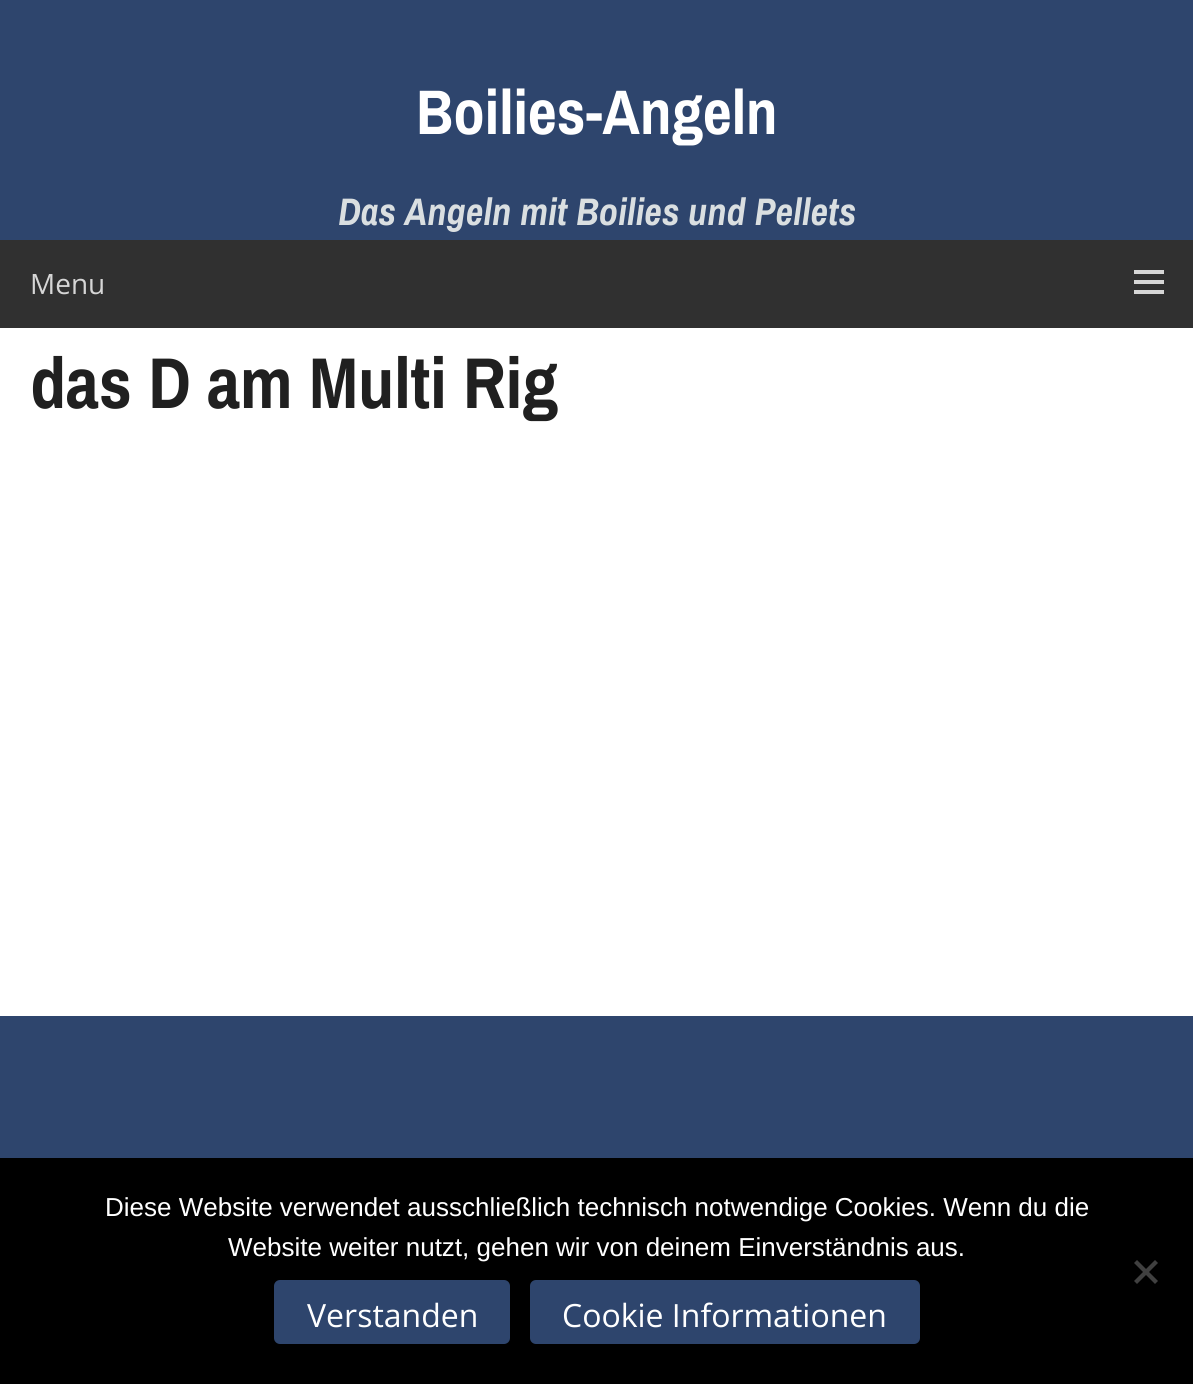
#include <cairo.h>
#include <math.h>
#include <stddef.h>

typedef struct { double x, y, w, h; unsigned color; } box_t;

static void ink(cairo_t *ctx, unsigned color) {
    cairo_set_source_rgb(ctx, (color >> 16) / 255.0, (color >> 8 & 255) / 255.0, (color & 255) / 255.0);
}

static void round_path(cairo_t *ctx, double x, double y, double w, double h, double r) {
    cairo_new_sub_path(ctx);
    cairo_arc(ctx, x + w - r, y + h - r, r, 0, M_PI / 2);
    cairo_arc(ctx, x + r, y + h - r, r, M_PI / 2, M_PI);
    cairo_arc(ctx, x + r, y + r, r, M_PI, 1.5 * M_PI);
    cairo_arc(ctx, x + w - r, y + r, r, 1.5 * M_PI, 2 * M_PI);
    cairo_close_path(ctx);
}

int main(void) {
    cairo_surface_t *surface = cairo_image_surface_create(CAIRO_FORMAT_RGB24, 1193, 1384);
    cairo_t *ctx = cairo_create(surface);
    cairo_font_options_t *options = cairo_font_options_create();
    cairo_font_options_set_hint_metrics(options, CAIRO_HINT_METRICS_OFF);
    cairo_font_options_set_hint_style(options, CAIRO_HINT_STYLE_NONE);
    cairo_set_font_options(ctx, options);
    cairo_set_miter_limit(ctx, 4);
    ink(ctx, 0x2E456D);
    cairo_paint(ctx);
    cairo_select_font_face(ctx, "Archivo Narrow", CAIRO_FONT_SLANT_NORMAL, CAIRO_FONT_WEIGHT_BOLD);
    cairo_set_font_size(ctx, 63);
    ink(ctx, 0xFFFFFF);
    cairo_move_to(ctx, 416, 134);
    cairo_show_text(ctx, "Boilies-Angeln");
    cairo_select_font_face(ctx, "Archivo Narrow", CAIRO_FONT_SLANT_ITALIC, CAIRO_FONT_WEIGHT_BOLD);
    cairo_set_font_size(ctx, 38.4);
    ink(ctx, 0xDADFE1);
    cairo_move_to(ctx, 338, 225);
    cairo_show_text(ctx, "Das Angeln mit Boilies und Pellets");
    ink(ctx, 0x303030);
    cairo_rectangle(ctx, 0, 240, 1193, 88);
    cairo_fill(ctx);
    cairo_select_font_face(ctx, "Open Sans", CAIRO_FONT_SLANT_NORMAL, CAIRO_FONT_WEIGHT_NORMAL);
    cairo_set_font_size(ctx, 28);
    ink(ctx, 0xD6D6D6);
    cairo_move_to(ctx, 30, 294);
    cairo_show_text(ctx, "Menu");
    {
        static const box_t items[] = {
            {1134, 280, 30, 4, 0xD6D6D6},
            {1134, 270, 30, 4, 0xD6D6D6},
            {1134, 290, 30, 4, 0xD6D6D6},
            {0, 328, 1193, 688, 0xFFFFFF},
        };
        for (size_t i = 0; i < sizeof items / sizeof *items; i++) {
            ink(ctx, items[i].color);
            cairo_rectangle(ctx, items[i].x, items[i].y, items[i].w, items[i].h);
            cairo_fill(ctx);
        }
    }
    cairo_select_font_face(ctx, "Archivo Narrow", CAIRO_FONT_SLANT_NORMAL, CAIRO_FONT_WEIGHT_BOLD);
    cairo_set_font_size(ctx, 72);
    ink(ctx, 0x202020);
    cairo_move_to(ctx, 30, 408);
    cairo_show_text(ctx, "das D am Multi Rig");
    ink(ctx, 0x000000);
    cairo_rectangle(ctx, 0, 1158, 1193, 226);
    cairo_fill(ctx);
    cairo_select_font_face(ctx, "Liberation Sans", CAIRO_FONT_SLANT_NORMAL, CAIRO_FONT_WEIGHT_NORMAL);
    cairo_set_font_size(ctx, 26);
    ink(ctx, 0xFFFFFF);
    cairo_move_to(ctx, 105, 1216);
    cairo_show_text(ctx, "Diese Website verwendet ausschließlich technisch notwendige Cookies. Wenn du die");
    cairo_move_to(ctx, 228, 1256);
    cairo_show_text(ctx, "Website weiter nutzt, gehen wir von deinem Einverständnis aus.");
    ink(ctx, 0x404040);
    cairo_new_path(ctx);
    cairo_move_to(ctx, 1155, 1260);
    cairo_line_to(ctx, 1158, 1263);
    cairo_line_to(ctx, 1137, 1284);
    cairo_line_to(ctx, 1134, 1281);
    cairo_close_path(ctx);
    cairo_fill(ctx);
    cairo_new_path(ctx);
    cairo_move_to(ctx, 1134, 1263);
    cairo_line_to(ctx, 1137, 1260);
    cairo_line_to(ctx, 1158, 1281);
    cairo_line_to(ctx, 1155, 1284);
    cairo_close_path(ctx);
    cairo_fill(ctx);
    ink(ctx, 0x2E456D);
    round_path(ctx, 274, 1280, 236, 64, 6);
    cairo_fill(ctx);
    cairo_select_font_face(ctx, "Open Sans", CAIRO_FONT_SLANT_NORMAL, CAIRO_FONT_WEIGHT_NORMAL);
    cairo_set_font_size(ctx, 32);
    ink(ctx, 0xFFFFFF);
    cairo_move_to(ctx, 307, 1327);
    cairo_show_text(ctx, "Verstanden");
    ink(ctx, 0x2E456D);
    round_path(ctx, 530, 1280, 390, 64, 6);
    cairo_fill(ctx);
    ink(ctx, 0xFFFFFF);
    cairo_move_to(ctx, 562, 1327);
    cairo_show_text(ctx, "Cookie Informationen");
    cairo_surface_write_to_png(surface, "image.png");
    cairo_font_options_destroy(options);
    cairo_destroy(ctx);
    cairo_surface_destroy(surface);
    return 0;
}
